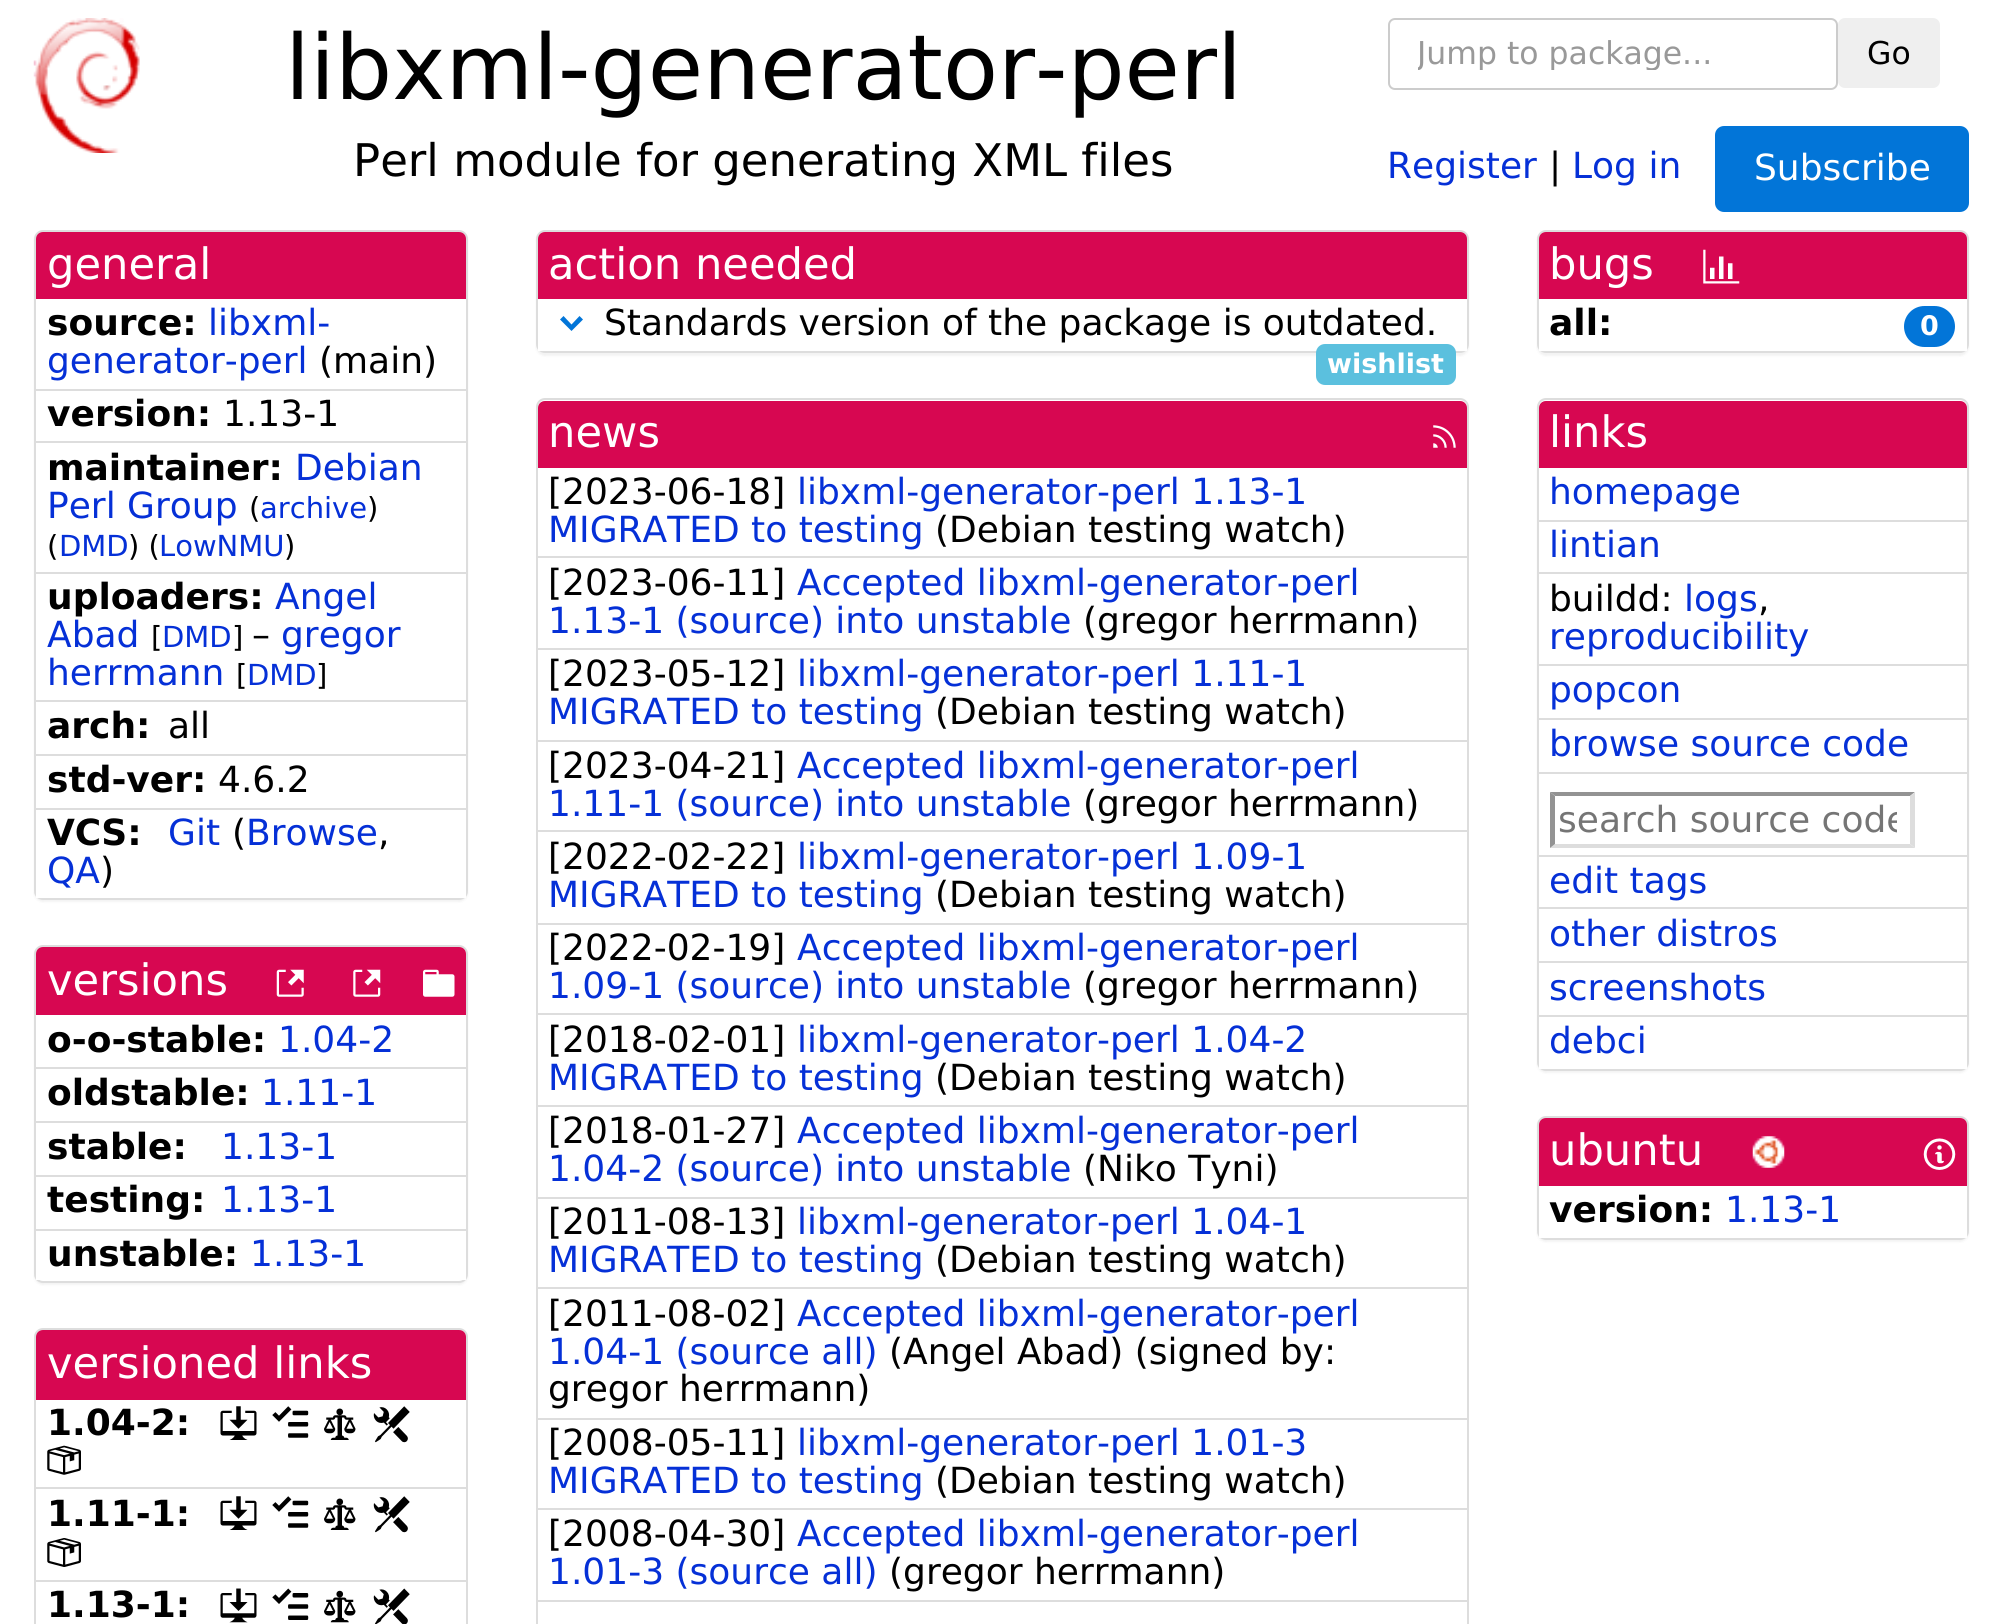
#include <cairo.h>
#include <math.h>
#include <stddef.h>


static void ink(cairo_t *ctx, unsigned color) {
    cairo_set_source_rgb(ctx, (color >> 16) / 255.0, (color >> 8 & 255) / 255.0, (color & 255) / 255.0);
}

static void round_path(cairo_t *ctx, double x, double y, double w, double h, double r) {
    cairo_new_sub_path(ctx);
    cairo_arc(ctx, x + w - r, y + h - r, r, 0, M_PI / 2);
    cairo_arc(ctx, x + r, y + h - r, r, M_PI / 2, M_PI);
    cairo_arc(ctx, x + r, y + r, r, M_PI, 1.5 * M_PI);
    cairo_arc(ctx, x + w - r, y + r, r, 1.5 * M_PI, 2 * M_PI);
    cairo_close_path(ctx);
}

static void blur_box(cairo_t *ctx, double x, double y, double w, double h, double r, double blur, double alpha) {
    cairo_push_group_with_content(ctx, CAIRO_CONTENT_ALPHA);
    cairo_set_operator(ctx, CAIRO_OPERATOR_SOURCE);
    for (int i = 15; i >= -15 && fmin(w, h) + blur * i / 3 > 0; i -= 2) {
        double e = blur * i / 6;
        cairo_set_source_rgba(ctx, 0, 0, 0, alpha * erfc((i - 1) / 8.5) / 2);
        round_path(ctx, x - e, y - e, w + 2 * e, h + 2 * e, fmax(0, fmin(r + e + blur * .6, fmin(w, h) / 2 + e)));
        cairo_fill(ctx);
    }
    cairo_pattern_t *soft = cairo_pop_group(ctx);
    cairo_mask(ctx, soft);
    cairo_pattern_destroy(soft);
}

static void paste(cairo_t *ctx, const char *path, double x, double y, double w, double h) {
    cairo_surface_t *image = cairo_image_surface_create_from_png(path);
    cairo_save(ctx);
    cairo_set_source_surface(ctx, image, x, y);
    cairo_rectangle(ctx, x, y, w, h);
    cairo_fill(ctx);
    cairo_restore(ctx);
    cairo_surface_destroy(image);
}

int main(void) {
    cairo_surface_t *surface = cairo_image_surface_create(CAIRO_FORMAT_RGB24, 2001, 1624);
    cairo_t *ctx = cairo_create(surface);
    cairo_font_options_t *options = cairo_font_options_create();
    cairo_font_options_set_hint_metrics(options, CAIRO_HINT_METRICS_OFF);
    cairo_font_options_set_hint_style(options, CAIRO_HINT_STYLE_NONE);
    cairo_set_font_options(ctx, options);
    cairo_set_miter_limit(ctx, 4);
    ink(ctx, 0xFFFFFF);
    cairo_paint(ctx);
    paste(ctx, "media/1.png", 33, 18, 107, 135);
    cairo_select_font_face(ctx, "DejaVu Sans", CAIRO_FONT_SLANT_NORMAL, CAIRO_FONT_WEIGHT_NORMAL);
    cairo_set_font_size(ctx, 90);
    ink(ctx, 0x000000);
    cairo_move_to(ctx, 285, 99);
    cairo_show_text(ctx, "libxml-generator-perl");
    cairo_set_font_size(ctx, 45);
    cairo_move_to(ctx, 353, 176);
    cairo_show_text(ctx, "Perl module for generating XML files");
    round_path(ctx, 1389, 19, 448, 70, 6);
    ink(ctx, 0xCCCCCC);
    cairo_stroke(ctx);
    cairo_save(ctx);
    cairo_rectangle(ctx, 1418, 34, 382, 36);
    cairo_clip(ctx);
    cairo_set_font_size(ctx, 31.5);
    ink(ctx, 0x999999);
    cairo_move_to(ctx, 1417, 64);
    cairo_show_text(ctx, "Jump to package...");
    cairo_restore(ctx);
    ink(ctx, 0xEFEFEF);
    round_path(ctx, 1838, 18, 102, 70, 7);
    cairo_fill(ctx);
    cairo_set_font_size(ctx, 31.5);
    ink(ctx, 0x000000);
    cairo_move_to(ctx, 1867, 64);
    cairo_show_text(ctx, "Go");
    cairo_set_font_size(ctx, 36);
    ink(ctx, 0x0530D7);
    cairo_move_to(ctx, 1387, 178);
    cairo_show_text(ctx, "Register");
    ink(ctx, 0x000000);
    cairo_move_to(ctx, 1549, 178);
    cairo_show_text(ctx, "|");
    ink(ctx, 0x0530D7);
    cairo_move_to(ctx, 1572, 178);
    cairo_show_text(ctx, "Log in");
    ink(ctx, 0x0275D8);
    round_path(ctx, 1716, 127, 252, 84, 8);
    cairo_fill_preserve(ctx);
    cairo_stroke(ctx);
    ink(ctx, 0xFFFFFF);
    cairo_move_to(ctx, 1754, 180);
    cairo_show_text(ctx, "Subscribe");
    ink(ctx, 0x000000);
    blur_box(ctx, 34, 232, 434, 670, 9, 1, 0.05);
    round_path(ctx, 35, 231, 432, 668, 8);
    ink(ctx, 0xDDDDDD);
    cairo_stroke(ctx);
    ink(ctx, 0xD70751);
    cairo_new_path(ctx);
    cairo_move_to(ctx, 43, 232);
    cairo_line_to(ctx, 459, 232);
    cairo_curve_to(ctx, 463, 232, 466, 235, 466, 239);
    cairo_line_to(ctx, 466, 302);
    cairo_line_to(ctx, 36, 302);
    cairo_line_to(ctx, 36, 239);
    cairo_curve_to(ctx, 36, 235, 39, 232, 43, 232);
    cairo_close_path(ctx);
    cairo_fill(ctx);
    cairo_set_font_size(ctx, 43.25);
    ink(ctx, 0xFFFFFF);
    cairo_move_to(ctx, 47, 279);
    cairo_show_text(ctx, "general");
    cairo_rectangle(ctx, 36, 299, 430, 599);
    cairo_fill(ctx);
    ink(ctx, 0xDDDDDD);
    cairo_rectangle(ctx, 36, 389, 430, 2);
    cairo_fill(ctx);
    cairo_select_font_face(ctx, "DejaVu Sans", CAIRO_FONT_SLANT_NORMAL, CAIRO_FONT_WEIGHT_BOLD);
    cairo_set_font_size(ctx, 36);
    ink(ctx, 0x000000);
    cairo_move_to(ctx, 47, 335);
    cairo_show_text(ctx, "source:");
    cairo_select_font_face(ctx, "DejaVu Sans", CAIRO_FONT_SLANT_NORMAL, CAIRO_FONT_WEIGHT_NORMAL);
    ink(ctx, 0x0530D7);
    cairo_move_to(ctx, 208, 335);
    cairo_show_text(ctx, "libxml-");
    cairo_move_to(ctx, 47, 373);
    cairo_show_text(ctx, "generator-perl");
    ink(ctx, 0x000000);
    cairo_move_to(ctx, 319, 373);
    cairo_show_text(ctx, "(main)");
    ink(ctx, 0xDDDDDD);
    cairo_rectangle(ctx, 36, 441, 430, 2);
    cairo_fill(ctx);
    cairo_select_font_face(ctx, "DejaVu Sans", CAIRO_FONT_SLANT_NORMAL, CAIRO_FONT_WEIGHT_BOLD);
    ink(ctx, 0x000000);
    cairo_move_to(ctx, 47, 426);
    cairo_show_text(ctx, "version:");
    cairo_select_font_face(ctx, "DejaVu Sans", CAIRO_FONT_SLANT_NORMAL, CAIRO_FONT_WEIGHT_NORMAL);
    cairo_move_to(ctx, 223, 426);
    cairo_show_text(ctx, "1.13-1");
    ink(ctx, 0xDDDDDD);
    cairo_rectangle(ctx, 36, 572, 430, 2);
    cairo_fill(ctx);
    cairo_select_font_face(ctx, "DejaVu Sans", CAIRO_FONT_SLANT_NORMAL, CAIRO_FONT_WEIGHT_BOLD);
    ink(ctx, 0x000000);
    cairo_move_to(ctx, 47, 480);
    cairo_show_text(ctx, "maintainer:");
    cairo_select_font_face(ctx, "DejaVu Sans", CAIRO_FONT_SLANT_NORMAL, CAIRO_FONT_WEIGHT_NORMAL);
    ink(ctx, 0x0530D7);
    cairo_move_to(ctx, 295, 480);
    cairo_show_text(ctx, "Debian");
    cairo_move_to(ctx, 47, 518);
    cairo_show_text(ctx, "Perl Group");
    cairo_set_font_size(ctx, 29);
    ink(ctx, 0x000000);
    cairo_move_to(ctx, 249, 518);
    cairo_show_text(ctx, "(");
    ink(ctx, 0x0530D7);
    cairo_move_to(ctx, 260, 518);
    cairo_show_text(ctx, "archive");
    ink(ctx, 0x000000);
    cairo_move_to(ctx, 367, 518);
    cairo_show_text(ctx, ")");
    cairo_move_to(ctx, 47, 556);
    cairo_show_text(ctx, "(");
    ink(ctx, 0x0530D7);
    cairo_move_to(ctx, 59, 556);
    cairo_show_text(ctx, "DMD");
    ink(ctx, 0x000000);
    cairo_move_to(ctx, 128, 556);
    cairo_show_text(ctx, ") (");
    ink(ctx, 0x0530D7);
    cairo_move_to(ctx, 159, 556);
    cairo_show_text(ctx, "LowNMU");
    ink(ctx, 0x000000);
    cairo_move_to(ctx, 284, 556);
    cairo_show_text(ctx, ")");
    ink(ctx, 0xDDDDDD);
    cairo_rectangle(ctx, 36, 700, 430, 2);
    cairo_fill(ctx);
    cairo_select_font_face(ctx, "DejaVu Sans", CAIRO_FONT_SLANT_NORMAL, CAIRO_FONT_WEIGHT_BOLD);
    cairo_set_font_size(ctx, 36);
    ink(ctx, 0x000000);
    cairo_move_to(ctx, 47, 609);
    cairo_show_text(ctx, "uploaders:");
    cairo_select_font_face(ctx, "DejaVu Sans", CAIRO_FONT_SLANT_NORMAL, CAIRO_FONT_WEIGHT_NORMAL);
    ink(ctx, 0x0530D7);
    cairo_move_to(ctx, 275, 609);
    cairo_show_text(ctx, "Angel");
    cairo_move_to(ctx, 47, 647);
    cairo_show_text(ctx, "Abad");
    cairo_set_font_size(ctx, 29);
    ink(ctx, 0x000000);
    cairo_move_to(ctx, 151, 647);
    cairo_show_text(ctx, "[");
    ink(ctx, 0x0530D7);
    cairo_move_to(ctx, 162, 647);
    cairo_show_text(ctx, "DMD");
    ink(ctx, 0x000000);
    cairo_move_to(ctx, 232, 647);
    cairo_show_text(ctx, "]");
    cairo_set_font_size(ctx, 36);
    cairo_move_to(ctx, 252, 647);
    cairo_show_text(ctx, "–");
    ink(ctx, 0x0530D7);
    cairo_move_to(ctx, 281, 647);
    cairo_show_text(ctx, "gregor");
    cairo_move_to(ctx, 47, 685);
    cairo_show_text(ctx, "herrmann");
    cairo_set_font_size(ctx, 29);
    ink(ctx, 0x000000);
    cairo_move_to(ctx, 236, 685);
    cairo_show_text(ctx, "[");
    ink(ctx, 0x0530D7);
    cairo_move_to(ctx, 247, 685);
    cairo_show_text(ctx, "DMD");
    ink(ctx, 0x000000);
    cairo_move_to(ctx, 316, 685);
    cairo_show_text(ctx, "]");
    ink(ctx, 0xDDDDDD);
    cairo_rectangle(ctx, 36, 754, 430, 2);
    cairo_fill(ctx);
    cairo_select_font_face(ctx, "DejaVu Sans", CAIRO_FONT_SLANT_NORMAL, CAIRO_FONT_WEIGHT_BOLD);
    cairo_set_font_size(ctx, 36);
    ink(ctx, 0x000000);
    cairo_move_to(ctx, 47, 738);
    cairo_show_text(ctx, "arch:");
    cairo_select_font_face(ctx, "DejaVu Sans", CAIRO_FONT_SLANT_NORMAL, CAIRO_FONT_WEIGHT_NORMAL);
    cairo_move_to(ctx, 168, 738);
    cairo_show_text(ctx, "all");
    cairo_select_font_face(ctx, "DejaVu Sans", CAIRO_FONT_SLANT_NORMAL, CAIRO_FONT_WEIGHT_BOLD);
    cairo_move_to(ctx, 47, 792);
    cairo_show_text(ctx, "std-ver:");
    cairo_select_font_face(ctx, "DejaVu Sans", CAIRO_FONT_SLANT_NORMAL, CAIRO_FONT_WEIGHT_NORMAL);
    cairo_move_to(ctx, 218, 792);
    cairo_show_text(ctx, "4.6.2");
    ink(ctx, 0xDDDDDD);
    cairo_rectangle(ctx, 36, 808, 430, 2);
    cairo_fill(ctx);
    cairo_select_font_face(ctx, "DejaVu Sans", CAIRO_FONT_SLANT_NORMAL, CAIRO_FONT_WEIGHT_BOLD);
    ink(ctx, 0x000000);
    cairo_move_to(ctx, 47, 845);
    cairo_show_text(ctx, "VCS:");
    cairo_select_font_face(ctx, "DejaVu Sans", CAIRO_FONT_SLANT_NORMAL, CAIRO_FONT_WEIGHT_NORMAL);
    ink(ctx, 0x0530D7);
    cairo_move_to(ctx, 168, 845);
    cairo_show_text(ctx, "Git");
    ink(ctx, 0x000000);
    cairo_move_to(ctx, 232, 845);
    cairo_show_text(ctx, "(");
    ink(ctx, 0x0530D7);
    cairo_move_to(ctx, 246, 845);
    cairo_show_text(ctx, "Browse");
    ink(ctx, 0x000000);
    cairo_move_to(ctx, 378, 845);
    cairo_show_text(ctx, ",");
    ink(ctx, 0x0530D7);
    cairo_move_to(ctx, 47, 883);
    cairo_show_text(ctx, "QA");
    ink(ctx, 0x000000);
    cairo_move_to(ctx, 100, 883);
    cairo_show_text(ctx, ")");
    ink(ctx, 0x000000);
    blur_box(ctx, 34, 947, 434, 338, 9, 1, 0.05);
    ink(ctx, 0xFFFFFF);
    round_path(ctx, 35, 946, 432, 336, 8);
    cairo_fill_preserve(ctx);
    ink(ctx, 0xDDDDDD);
    cairo_stroke(ctx);
    ink(ctx, 0xD70751);
    cairo_new_path(ctx);
    cairo_move_to(ctx, 43, 947);
    cairo_line_to(ctx, 459, 947);
    cairo_curve_to(ctx, 463, 947, 466, 950, 466, 954);
    cairo_line_to(ctx, 466, 1017);
    cairo_line_to(ctx, 36, 1017);
    cairo_line_to(ctx, 36, 954);
    cairo_curve_to(ctx, 36, 950, 39, 947, 43, 947);
    cairo_close_path(ctx);
    cairo_fill(ctx);
    cairo_set_font_size(ctx, 43.25);
    ink(ctx, 0xFFFFFF);
    cairo_move_to(ctx, 47, 995);
    cairo_show_text(ctx, "versions");
    paste(ctx, "media/2.png", 276, 969, 28, 28);
    paste(ctx, "media/3.png", 353, 969, 28, 28);
    paste(ctx, "media/4.png", 423, 969, 32, 28);
    cairo_rectangle(ctx, 36, 1015, 430, 265);
    cairo_fill(ctx);
    ink(ctx, 0xDDDDDD);
    cairo_rectangle(ctx, 36, 1067, 430, 2);
    cairo_fill(ctx);
    cairo_select_font_face(ctx, "DejaVu Sans", CAIRO_FONT_SLANT_NORMAL, CAIRO_FONT_WEIGHT_BOLD);
    cairo_set_font_size(ctx, 36);
    ink(ctx, 0x000000);
    cairo_move_to(ctx, 47, 1052);
    cairo_show_text(ctx, "o-o-stable:");
    cairo_select_font_face(ctx, "DejaVu Sans", CAIRO_FONT_SLANT_NORMAL, CAIRO_FONT_WEIGHT_NORMAL);
    ink(ctx, 0x0530D7);
    cairo_move_to(ctx, 278, 1052);
    cairo_show_text(ctx, "1.04-2");
    ink(ctx, 0xDDDDDD);
    cairo_rectangle(ctx, 36, 1121, 430, 2);
    cairo_fill(ctx);
    cairo_select_font_face(ctx, "DejaVu Sans", CAIRO_FONT_SLANT_NORMAL, CAIRO_FONT_WEIGHT_BOLD);
    ink(ctx, 0x000000);
    cairo_move_to(ctx, 47, 1105);
    cairo_show_text(ctx, "oldstable:");
    cairo_select_font_face(ctx, "DejaVu Sans", CAIRO_FONT_SLANT_NORMAL, CAIRO_FONT_WEIGHT_NORMAL);
    ink(ctx, 0x0530D7);
    cairo_move_to(ctx, 261, 1105);
    cairo_show_text(ctx, "1.11-1");
    ink(ctx, 0xDDDDDD);
    cairo_rectangle(ctx, 36, 1175, 430, 2);
    cairo_fill(ctx);
    cairo_select_font_face(ctx, "DejaVu Sans", CAIRO_FONT_SLANT_NORMAL, CAIRO_FONT_WEIGHT_BOLD);
    ink(ctx, 0x000000);
    cairo_move_to(ctx, 47, 1159);
    cairo_show_text(ctx, "stable:");
    cairo_select_font_face(ctx, "DejaVu Sans", CAIRO_FONT_SLANT_NORMAL, CAIRO_FONT_WEIGHT_NORMAL);
    ink(ctx, 0x0530D7);
    cairo_move_to(ctx, 221, 1159);
    cairo_show_text(ctx, "1.13-1");
    cairo_select_font_face(ctx, "DejaVu Sans", CAIRO_FONT_SLANT_NORMAL, CAIRO_FONT_WEIGHT_BOLD);
    ink(ctx, 0x000000);
    cairo_move_to(ctx, 47, 1212);
    cairo_show_text(ctx, "testing:");
    cairo_select_font_face(ctx, "DejaVu Sans", CAIRO_FONT_SLANT_NORMAL, CAIRO_FONT_WEIGHT_NORMAL);
    ink(ctx, 0x0530D7);
    cairo_move_to(ctx, 221, 1212);
    cairo_show_text(ctx, "1.13-1");
    ink(ctx, 0xDDDDDD);
    cairo_rectangle(ctx, 36, 1229, 430, 2);
    cairo_fill(ctx);
    cairo_select_font_face(ctx, "DejaVu Sans", CAIRO_FONT_SLANT_NORMAL, CAIRO_FONT_WEIGHT_BOLD);
    ink(ctx, 0x000000);
    cairo_move_to(ctx, 47, 1266);
    cairo_show_text(ctx, "unstable:");
    cairo_select_font_face(ctx, "DejaVu Sans", CAIRO_FONT_SLANT_NORMAL, CAIRO_FONT_WEIGHT_NORMAL);
    ink(ctx, 0x0530D7);
    cairo_move_to(ctx, 250, 1266);
    cairo_show_text(ctx, "1.13-1");
    round_path(ctx, 35, 1329, 432, 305, 8);
    ink(ctx, 0xDDDDDD);
    cairo_stroke(ctx);
    ink(ctx, 0xD70751);
    cairo_new_path(ctx);
    cairo_move_to(ctx, 43, 1330);
    cairo_line_to(ctx, 459, 1330);
    cairo_curve_to(ctx, 463, 1330, 466, 1333, 466, 1337);
    cairo_line_to(ctx, 466, 1402);
    cairo_line_to(ctx, 36, 1402);
    cairo_line_to(ctx, 36, 1337);
    cairo_curve_to(ctx, 36, 1333, 39, 1330, 43, 1330);
    cairo_close_path(ctx);
    cairo_fill(ctx);
    cairo_set_font_size(ctx, 43.25);
    ink(ctx, 0xFFFFFF);
    cairo_move_to(ctx, 47, 1378);
    cairo_show_text(ctx, "versioned links");
    cairo_rectangle(ctx, 36, 1400, 430, 2);
    cairo_fill(ctx);
    ink(ctx, 0xDDDDDD);
    cairo_rectangle(ctx, 36, 1487, 430, 2);
    cairo_fill(ctx);
    cairo_select_font_face(ctx, "DejaVu Sans", CAIRO_FONT_SLANT_NORMAL, CAIRO_FONT_WEIGHT_BOLD);
    cairo_set_font_size(ctx, 36);
    ink(ctx, 0x000000);
    cairo_move_to(ctx, 47, 1435);
    cairo_show_text(ctx, "1.04-2:");
    paste(ctx, "media/5.png", 220, 1406, 37, 34);
    paste(ctx, "media/6.png", 272, 1406, 37, 32);
    paste(ctx, "media/7.png", 324, 1408, 32, 32);
    paste(ctx, "media/8.png", 373, 1406, 37, 37);
    paste(ctx, "media/9.png", 47, 1445, 34, 30);
    cairo_move_to(ctx, 47, 1526);
    cairo_show_text(ctx, "1.11-1:");
    paste(ctx, "media/5.png", 220, 1496, 37, 34);
    paste(ctx, "media/6.png", 272, 1496, 37, 32);
    paste(ctx, "media/7.png", 324, 1498, 32, 32);
    paste(ctx, "media/8.png", 373, 1496, 37, 37);
    paste(ctx, "media/10.png", 47, 1538, 34, 29);
    ink(ctx, 0xDDDDDD);
    cairo_rectangle(ctx, 36, 1580, 430, 2);
    cairo_fill(ctx);
    ink(ctx, 0x000000);
    cairo_move_to(ctx, 47, 1617);
    cairo_show_text(ctx, "1.13-1:");
    paste(ctx, "media/11.png", 220, 1588, 37, 35);
    paste(ctx, "media/12.png", 272, 1588, 37, 32);
    paste(ctx, "media/13.png", 324, 1590, 32, 33);
    paste(ctx, "media/14.png", 373, 1588, 37, 36);
    ink(ctx, 0x000000);
    blur_box(ctx, 536, 232, 933, 124, 9, 1, 0.05);
    round_path(ctx, 537, 231, 931, 121, 8);
    ink(ctx, 0xDDDDDD);
    cairo_stroke(ctx);
    ink(ctx, 0xD70751);
    cairo_new_path(ctx);
    cairo_move_to(ctx, 545, 232);
    cairo_line_to(ctx, 1460, 232);
    cairo_curve_to(ctx, 1464, 232, 1467, 235, 1467, 239);
    cairo_line_to(ctx, 1467, 302);
    cairo_line_to(ctx, 538, 302);
    cairo_line_to(ctx, 538, 239);
    cairo_curve_to(ctx, 538, 235, 541, 232, 545, 232);
    cairo_close_path(ctx);
    cairo_fill(ctx);
    cairo_select_font_face(ctx, "DejaVu Sans", CAIRO_FONT_SLANT_NORMAL, CAIRO_FONT_WEIGHT_NORMAL);
    cairo_set_font_size(ctx, 43.25);
    ink(ctx, 0xFFFFFF);
    cairo_move_to(ctx, 548, 279);
    cairo_show_text(ctx, "action needed");
    cairo_rectangle(ctx, 538, 299, 929, 52);
    cairo_fill(ctx);
    ink(ctx, 0x0275D8);
    cairo_new_path(ctx);
    cairo_move_to(ctx, 571.5, 331);
    cairo_line_to(ctx, 560, 319.5);
    cairo_line_to(ctx, 563.5, 316);
    cairo_line_to(ctx, 571.5, 324.5);
    cairo_line_to(ctx, 579.5, 316);
    cairo_line_to(ctx, 583, 319.5);
    cairo_close_path(ctx);
    cairo_fill(ctx);
    cairo_set_font_size(ctx, 36);
    ink(ctx, 0x000000);
    cairo_move_to(ctx, 604, 335);
    cairo_show_text(ctx, "Standards version of the package is outdated.");
    ink(ctx, 0x5BC0DE);
    round_path(ctx, 1316, 344, 140, 41, 9);
    cairo_fill(ctx);
    cairo_select_font_face(ctx, "DejaVu Sans", CAIRO_FONT_SLANT_NORMAL, CAIRO_FONT_WEIGHT_BOLD);
    cairo_set_font_size(ctx, 27);
    ink(ctx, 0xFFFFFF);
    cairo_move_to(ctx, 1327, 373);
    cairo_show_text(ctx, "wishlist");
    round_path(ctx, 537, 399, 931, 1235, 8);
    ink(ctx, 0xDDDDDD);
    cairo_stroke(ctx);
    ink(ctx, 0xD70751);
    cairo_new_path(ctx);
    cairo_move_to(ctx, 545, 401);
    cairo_line_to(ctx, 1460, 401);
    cairo_curve_to(ctx, 1464, 401, 1467, 404, 1467, 408);
    cairo_line_to(ctx, 1467, 470);
    cairo_line_to(ctx, 538, 470);
    cairo_line_to(ctx, 538, 408);
    cairo_curve_to(ctx, 538, 404, 541, 401, 545, 401);
    cairo_close_path(ctx);
    cairo_fill(ctx);
    cairo_select_font_face(ctx, "DejaVu Sans", CAIRO_FONT_SLANT_NORMAL, CAIRO_FONT_WEIGHT_NORMAL);
    cairo_set_font_size(ctx, 43.25);
    ink(ctx, 0xFFFFFF);
    cairo_move_to(ctx, 548, 447);
    cairo_show_text(ctx, "news");
    paste(ctx, "media/15.png", 1433, 425, 23, 23);
    cairo_rectangle(ctx, 538, 468, 929, 2);
    cairo_fill(ctx);
    ink(ctx, 0xDDDDDD);
    cairo_rectangle(ctx, 538, 556, 929, 2);
    cairo_fill(ctx);
    cairo_set_font_size(ctx, 36);
    ink(ctx, 0x000000);
    cairo_move_to(ctx, 548, 504);
    cairo_show_text(ctx, "[2023-06-18]");
    ink(ctx, 0x0530D7);
    cairo_move_to(ctx, 797, 504);
    cairo_show_text(ctx, "libxml-generator-perl 1.13-1");
    cairo_move_to(ctx, 548, 542);
    cairo_show_text(ctx, "MIGRATED to testing");
    ink(ctx, 0x000000);
    cairo_move_to(ctx, 935, 542);
    cairo_show_text(ctx, "(Debian testing watch)");
    ink(ctx, 0xDDDDDD);
    cairo_rectangle(ctx, 538, 648, 929, 2);
    cairo_fill(ctx);
    ink(ctx, 0x000000);
    cairo_move_to(ctx, 548, 595);
    cairo_show_text(ctx, "[2023-06-11]");
    ink(ctx, 0x0530D7);
    cairo_move_to(ctx, 797, 595);
    cairo_show_text(ctx, "Accepted libxml-generator-perl");
    cairo_move_to(ctx, 548, 633);
    cairo_show_text(ctx, "1.13-1 (source) into unstable");
    ink(ctx, 0x000000);
    cairo_move_to(ctx, 1083, 633);
    cairo_show_text(ctx, "(gregor herrmann)");
    ink(ctx, 0xDDDDDD);
    cairo_rectangle(ctx, 538, 740, 929, 2);
    cairo_fill(ctx);
    ink(ctx, 0x000000);
    cairo_move_to(ctx, 548, 686);
    cairo_show_text(ctx, "[2023-05-12]");
    ink(ctx, 0x0530D7);
    cairo_move_to(ctx, 797, 686);
    cairo_show_text(ctx, "libxml-generator-perl 1.11-1");
    cairo_move_to(ctx, 548, 724);
    cairo_show_text(ctx, "MIGRATED to testing");
    ink(ctx, 0x000000);
    cairo_move_to(ctx, 935, 724);
    cairo_show_text(ctx, "(Debian testing watch)");
    ink(ctx, 0xDDDDDD);
    cairo_rectangle(ctx, 538, 830, 929, 2);
    cairo_fill(ctx);
    ink(ctx, 0x000000);
    cairo_move_to(ctx, 548, 778);
    cairo_show_text(ctx, "[2023-04-21]");
    ink(ctx, 0x0530D7);
    cairo_move_to(ctx, 797, 778);
    cairo_show_text(ctx, "Accepted libxml-generator-perl");
    cairo_move_to(ctx, 548, 816);
    cairo_show_text(ctx, "1.11-1 (source) into unstable");
    ink(ctx, 0x000000);
    cairo_move_to(ctx, 1083, 816);
    cairo_show_text(ctx, "(gregor herrmann)");
    ink(ctx, 0xDDDDDD);
    cairo_rectangle(ctx, 538, 923, 929, 2);
    cairo_fill(ctx);
    ink(ctx, 0x000000);
    cairo_move_to(ctx, 548, 869);
    cairo_show_text(ctx, "[2022-02-22]");
    ink(ctx, 0x0530D7);
    cairo_move_to(ctx, 797, 869);
    cairo_show_text(ctx, "libxml-generator-perl 1.09-1");
    cairo_move_to(ctx, 548, 907);
    cairo_show_text(ctx, "MIGRATED to testing");
    ink(ctx, 0x000000);
    cairo_move_to(ctx, 935, 907);
    cairo_show_text(ctx, "(Debian testing watch)");
    ink(ctx, 0xDDDDDD);
    cairo_rectangle(ctx, 538, 1013, 929, 2);
    cairo_fill(ctx);
    ink(ctx, 0x000000);
    cairo_move_to(ctx, 548, 960);
    cairo_show_text(ctx, "[2022-02-19]");
    ink(ctx, 0x0530D7);
    cairo_move_to(ctx, 797, 960);
    cairo_show_text(ctx, "Accepted libxml-generator-perl");
    cairo_move_to(ctx, 548, 998);
    cairo_show_text(ctx, "1.09-1 (source) into unstable");
    ink(ctx, 0x000000);
    cairo_move_to(ctx, 1083, 998);
    cairo_show_text(ctx, "(gregor herrmann)");
    ink(ctx, 0xDDDDDD);
    cairo_rectangle(ctx, 538, 1105, 929, 2);
    cairo_fill(ctx);
    ink(ctx, 0x000000);
    cairo_move_to(ctx, 548, 1052);
    cairo_show_text(ctx, "[2018-02-01]");
    ink(ctx, 0x0530D7);
    cairo_move_to(ctx, 797, 1052);
    cairo_show_text(ctx, "libxml-generator-perl 1.04-2");
    cairo_move_to(ctx, 548, 1090);
    cairo_show_text(ctx, "MIGRATED to testing");
    ink(ctx, 0x000000);
    cairo_move_to(ctx, 935, 1090);
    cairo_show_text(ctx, "(Debian testing watch)");
    ink(ctx, 0xDDDDDD);
    cairo_rectangle(ctx, 538, 1197, 929, 2);
    cairo_fill(ctx);
    ink(ctx, 0x000000);
    cairo_move_to(ctx, 548, 1143);
    cairo_show_text(ctx, "[2018-01-27]");
    ink(ctx, 0x0530D7);
    cairo_move_to(ctx, 797, 1143);
    cairo_show_text(ctx, "Accepted libxml-generator-perl");
    cairo_move_to(ctx, 548, 1181);
    cairo_show_text(ctx, "1.04-2 (source) into unstable");
    ink(ctx, 0x000000);
    cairo_move_to(ctx, 1083, 1181);
    cairo_show_text(ctx, "(Niko Tyni)");
    ink(ctx, 0xDDDDDD);
    cairo_rectangle(ctx, 538, 1287, 929, 2);
    cairo_fill(ctx);
    ink(ctx, 0x000000);
    cairo_move_to(ctx, 548, 1234);
    cairo_show_text(ctx, "[2011-08-13]");
    ink(ctx, 0x0530D7);
    cairo_move_to(ctx, 797, 1234);
    cairo_show_text(ctx, "libxml-generator-perl 1.04-1");
    cairo_move_to(ctx, 548, 1272);
    cairo_show_text(ctx, "MIGRATED to testing");
    ink(ctx, 0x000000);
    cairo_move_to(ctx, 935, 1272);
    cairo_show_text(ctx, "(Debian testing watch)");
    ink(ctx, 0xDDDDDD);
    cairo_rectangle(ctx, 538, 1418, 929, 2);
    cairo_fill(ctx);
    ink(ctx, 0x000000);
    cairo_move_to(ctx, 548, 1326);
    cairo_show_text(ctx, "[2011-08-02]");
    ink(ctx, 0x0530D7);
    cairo_move_to(ctx, 797, 1326);
    cairo_show_text(ctx, "Accepted libxml-generator-perl");
    cairo_move_to(ctx, 548, 1364);
    cairo_show_text(ctx, "1.04-1 (source all)");
    ink(ctx, 0x000000);
    cairo_move_to(ctx, 889, 1364);
    cairo_show_text(ctx, "(Angel Abad) (signed by:");
    cairo_move_to(ctx, 548, 1401);
    cairo_show_text(ctx, "gregor herrmann)");
    ink(ctx, 0xDDDDDD);
    cairo_rectangle(ctx, 538, 1508, 929, 2);
    cairo_fill(ctx);
    ink(ctx, 0x000000);
    cairo_move_to(ctx, 548, 1455);
    cairo_show_text(ctx, "[2008-05-11]");
    ink(ctx, 0x0530D7);
    cairo_move_to(ctx, 797, 1455);
    cairo_show_text(ctx, "libxml-generator-perl 1.01-3");
    cairo_move_to(ctx, 548, 1493);
    cairo_show_text(ctx, "MIGRATED to testing");
    ink(ctx, 0x000000);
    cairo_move_to(ctx, 935, 1493);
    cairo_show_text(ctx, "(Debian testing watch)");
    ink(ctx, 0xDDDDDD);
    cairo_rectangle(ctx, 538, 1600, 929, 2);
    cairo_fill(ctx);
    ink(ctx, 0x000000);
    cairo_move_to(ctx, 548, 1546);
    cairo_show_text(ctx, "[2008-04-30]");
    ink(ctx, 0x0530D7);
    cairo_move_to(ctx, 797, 1546);
    cairo_show_text(ctx, "Accepted libxml-generator-perl");
    cairo_move_to(ctx, 548, 1584);
    cairo_show_text(ctx, "1.01-3 (source all)");
    ink(ctx, 0x000000);
    cairo_move_to(ctx, 889, 1584);
    cairo_show_text(ctx, "(gregor herrmann)");
    ink(ctx, 0x000000);
    blur_box(ctx, 1537, 232, 432, 124, 9, 1, 0.05);
    round_path(ctx, 1538, 231, 430, 121, 8);
    ink(ctx, 0xDDDDDD);
    cairo_stroke(ctx);
    ink(ctx, 0xD70751);
    cairo_new_path(ctx);
    cairo_move_to(ctx, 1546, 232);
    cairo_line_to(ctx, 1960, 232);
    cairo_curve_to(ctx, 1964, 232, 1967, 235, 1967, 239);
    cairo_line_to(ctx, 1967, 302);
    cairo_line_to(ctx, 1539, 302);
    cairo_line_to(ctx, 1539, 239);
    cairo_curve_to(ctx, 1539, 235, 1542, 232, 1546, 232);
    cairo_close_path(ctx);
    cairo_fill(ctx);
    cairo_set_font_size(ctx, 43.25);
    ink(ctx, 0xFFFFFF);
    cairo_move_to(ctx, 1549, 279);
    cairo_show_text(ctx, "bugs");
    paste(ctx, "media/16.png", 1703, 249, 37, 35);
    cairo_rectangle(ctx, 1539, 299, 428, 52);
    cairo_fill(ctx);
    cairo_select_font_face(ctx, "DejaVu Sans", CAIRO_FONT_SLANT_NORMAL, CAIRO_FONT_WEIGHT_BOLD);
    cairo_set_font_size(ctx, 36);
    ink(ctx, 0x000000);
    cairo_move_to(ctx, 1549, 335);
    cairo_show_text(ctx, "all:");
    ink(ctx, 0x0275D8);
    round_path(ctx, 1904, 306, 51, 41, 20.5);
    cairo_fill(ctx);
    cairo_set_font_size(ctx, 27);
    ink(ctx, 0xFFFFFF);
    cairo_move_to(ctx, 1920, 335);
    cairo_show_text(ctx, "0");
    ink(ctx, 0x000000);
    blur_box(ctx, 1537, 401, 432, 672, 9, 1, 0.05);
    ink(ctx, 0xFFFFFF);
    round_path(ctx, 1538, 399, 430, 671, 8);
    cairo_fill_preserve(ctx);
    ink(ctx, 0xDDDDDD);
    cairo_stroke(ctx);
    ink(ctx, 0xD70751);
    cairo_new_path(ctx);
    cairo_move_to(ctx, 1546, 401);
    cairo_line_to(ctx, 1960, 401);
    cairo_curve_to(ctx, 1964, 401, 1967, 404, 1967, 408);
    cairo_line_to(ctx, 1967, 470);
    cairo_line_to(ctx, 1539, 470);
    cairo_line_to(ctx, 1539, 408);
    cairo_curve_to(ctx, 1539, 404, 1542, 401, 1546, 401);
    cairo_close_path(ctx);
    cairo_fill(ctx);
    cairo_select_font_face(ctx, "DejaVu Sans", CAIRO_FONT_SLANT_NORMAL, CAIRO_FONT_WEIGHT_NORMAL);
    cairo_set_font_size(ctx, 43.25);
    ink(ctx, 0xFFFFFF);
    cairo_move_to(ctx, 1549, 447);
    cairo_show_text(ctx, "links");
    cairo_rectangle(ctx, 1539, 468, 428, 601);
    cairo_fill(ctx);
    ink(ctx, 0xDDDDDD);
    cairo_rectangle(ctx, 1539, 520, 428, 2);
    cairo_fill(ctx);
    cairo_set_font_size(ctx, 36);
    ink(ctx, 0x0530D7);
    cairo_move_to(ctx, 1549, 504);
    cairo_show_text(ctx, "homepage");
    ink(ctx, 0xDDDDDD);
    cairo_rectangle(ctx, 1539, 572, 428, 2);
    cairo_fill(ctx);
    ink(ctx, 0x0530D7);
    cairo_move_to(ctx, 1549, 557);
    cairo_show_text(ctx, "lintian");
    ink(ctx, 0xDDDDDD);
    cairo_rectangle(ctx, 1539, 664, 428, 2);
    cairo_fill(ctx);
    ink(ctx, 0x000000);
    cairo_move_to(ctx, 1549, 611);
    cairo_show_text(ctx, "buildd:");
    ink(ctx, 0x0530D7);
    cairo_move_to(ctx, 1684, 611);
    cairo_show_text(ctx, "logs");
    ink(ctx, 0x000000);
    cairo_move_to(ctx, 1758, 611);
    cairo_show_text(ctx, ",");
    ink(ctx, 0x0530D7);
    cairo_move_to(ctx, 1549, 649);
    cairo_show_text(ctx, "reproducibility");
    ink(ctx, 0xDDDDDD);
    cairo_rectangle(ctx, 1539, 718, 428, 2);
    cairo_fill(ctx);
    ink(ctx, 0x0530D7);
    cairo_move_to(ctx, 1549, 702);
    cairo_show_text(ctx, "popcon");
    ink(ctx, 0xDDDDDD);
    cairo_rectangle(ctx, 1539, 772, 428, 2);
    cairo_fill(ctx);
    ink(ctx, 0x0530D7);
    cairo_move_to(ctx, 1549, 756);
    cairo_show_text(ctx, "browse source code");
    ink(ctx, 0xDDDDDD);
    cairo_rectangle(ctx, 1539, 855, 428, 2);
    cairo_fill(ctx);
    ink(ctx, 0x939393);
    cairo_new_path(ctx);
    cairo_move_to(ctx, 1550, 792);
    cairo_line_to(ctx, 1915, 792);
    cairo_line_to(ctx, 1910, 796);
    cairo_line_to(ctx, 1555, 796);
    cairo_close_path(ctx);
    cairo_fill(ctx);
    ink(ctx, 0xDDDDDD);
    cairo_new_path(ctx);
    cairo_move_to(ctx, 1915, 792);
    cairo_line_to(ctx, 1915, 848);
    cairo_line_to(ctx, 1910, 844);
    cairo_line_to(ctx, 1910, 796);
    cairo_close_path(ctx);
    cairo_fill(ctx);
    cairo_new_path(ctx);
    cairo_move_to(ctx, 1915, 848);
    cairo_line_to(ctx, 1550, 848);
    cairo_line_to(ctx, 1555, 844);
    cairo_line_to(ctx, 1910, 844);
    cairo_close_path(ctx);
    cairo_fill(ctx);
    ink(ctx, 0x939393);
    cairo_new_path(ctx);
    cairo_move_to(ctx, 1550, 848);
    cairo_line_to(ctx, 1550, 792);
    cairo_line_to(ctx, 1555, 796);
    cairo_line_to(ctx, 1555, 844);
    cairo_close_path(ctx);
    cairo_fill(ctx);
    cairo_save(ctx);
    cairo_rectangle(ctx, 1559, 799, 338, 43);
    cairo_clip(ctx);
    ink(ctx, 0x757575);
    cairo_move_to(ctx, 1558, 832);
    cairo_show_text(ctx, "search source code");
    cairo_restore(ctx);
    ink(ctx, 0xDDDDDD);
    cairo_rectangle(ctx, 1539, 907, 428, 2);
    cairo_fill(ctx);
    ink(ctx, 0x0530D7);
    cairo_move_to(ctx, 1549, 893);
    cairo_show_text(ctx, "edit tags");
    ink(ctx, 0xDDDDDD);
    cairo_rectangle(ctx, 1539, 961, 428, 2);
    cairo_fill(ctx);
    ink(ctx, 0x0530D7);
    cairo_move_to(ctx, 1549, 946);
    cairo_show_text(ctx, "other distros");
    cairo_move_to(ctx, 1549, 1000);
    cairo_show_text(ctx, "screenshots");
    ink(ctx, 0xDDDDDD);
    cairo_rectangle(ctx, 1539, 1015, 428, 2);
    cairo_fill(ctx);
    ink(ctx, 0x0530D7);
    cairo_move_to(ctx, 1549, 1053);
    cairo_show_text(ctx, "debci");
    ink(ctx, 0x000000);
    blur_box(ctx, 1537, 1118, 432, 124, 9, 1, 0.05);
    round_path(ctx, 1538, 1117, 430, 122, 8);
    ink(ctx, 0xDDDDDD);
    cairo_stroke(ctx);
    ink(ctx, 0xD70751);
    cairo_new_path(ctx);
    cairo_move_to(ctx, 1546, 1118);
    cairo_line_to(ctx, 1960, 1118);
    cairo_curve_to(ctx, 1964, 1118, 1967, 1121, 1967, 1125);
    cairo_line_to(ctx, 1967, 1188);
    cairo_line_to(ctx, 1539, 1188);
    cairo_line_to(ctx, 1539, 1125);
    cairo_curve_to(ctx, 1539, 1121, 1542, 1118, 1546, 1118);
    cairo_close_path(ctx);
    cairo_fill(ctx);
    cairo_set_font_size(ctx, 43.25);
    ink(ctx, 0xFFFFFF);
    cairo_move_to(ctx, 1549, 1165);
    cairo_show_text(ctx, "ubuntu");
    paste(ctx, "media/17.png", 1752, 1136, 33, 32);
    paste(ctx, "media/18.png", 1923, 1138, 33, 32);
    cairo_rectangle(ctx, 1539, 1186, 428, 52);
    cairo_fill(ctx);
    cairo_select_font_face(ctx, "DejaVu Sans", CAIRO_FONT_SLANT_NORMAL, CAIRO_FONT_WEIGHT_BOLD);
    cairo_set_font_size(ctx, 36);
    ink(ctx, 0x000000);
    cairo_move_to(ctx, 1549, 1222);
    cairo_show_text(ctx, "version:");
    cairo_select_font_face(ctx, "DejaVu Sans", CAIRO_FONT_SLANT_NORMAL, CAIRO_FONT_WEIGHT_NORMAL);
    ink(ctx, 0x0530D7);
    cairo_move_to(ctx, 1725, 1222);
    cairo_show_text(ctx, "1.13-1");
    cairo_surface_write_to_png(surface, "image.png");
    cairo_font_options_destroy(options);
    cairo_destroy(ctx);
    cairo_surface_destroy(surface);
    return 0;
}
